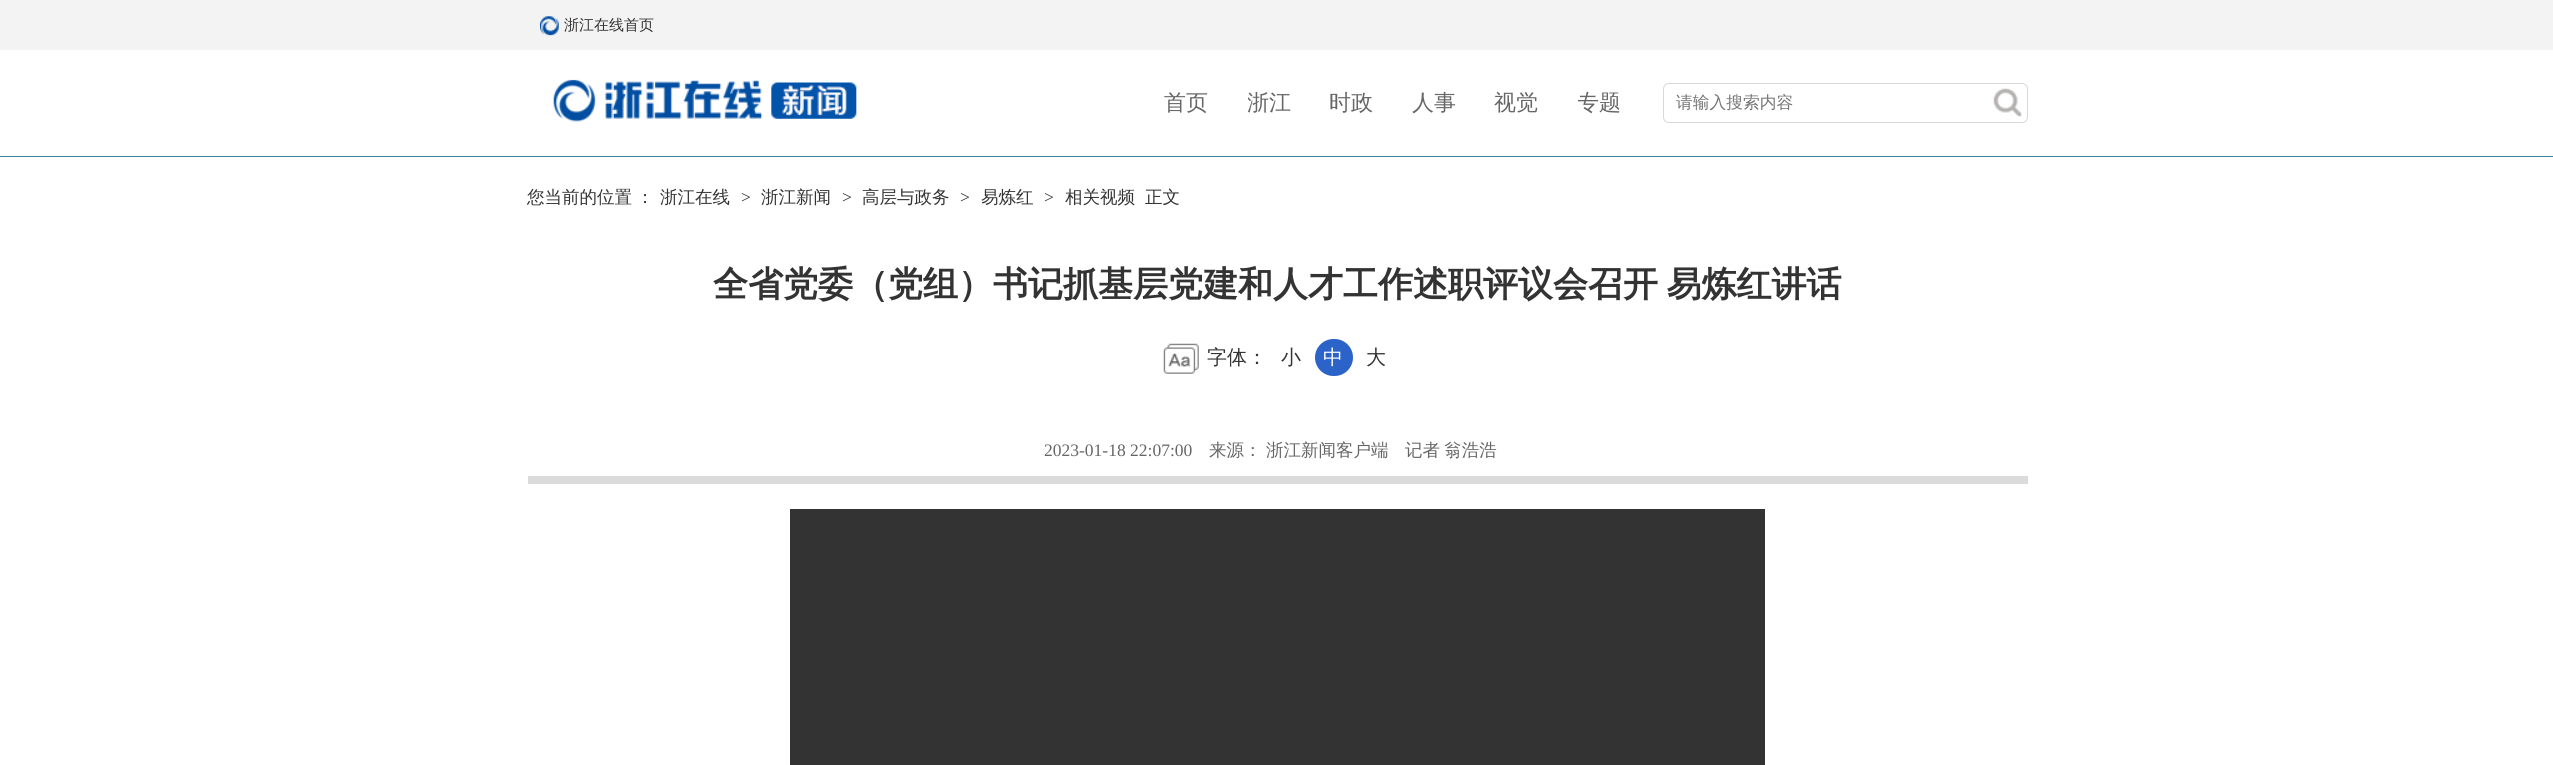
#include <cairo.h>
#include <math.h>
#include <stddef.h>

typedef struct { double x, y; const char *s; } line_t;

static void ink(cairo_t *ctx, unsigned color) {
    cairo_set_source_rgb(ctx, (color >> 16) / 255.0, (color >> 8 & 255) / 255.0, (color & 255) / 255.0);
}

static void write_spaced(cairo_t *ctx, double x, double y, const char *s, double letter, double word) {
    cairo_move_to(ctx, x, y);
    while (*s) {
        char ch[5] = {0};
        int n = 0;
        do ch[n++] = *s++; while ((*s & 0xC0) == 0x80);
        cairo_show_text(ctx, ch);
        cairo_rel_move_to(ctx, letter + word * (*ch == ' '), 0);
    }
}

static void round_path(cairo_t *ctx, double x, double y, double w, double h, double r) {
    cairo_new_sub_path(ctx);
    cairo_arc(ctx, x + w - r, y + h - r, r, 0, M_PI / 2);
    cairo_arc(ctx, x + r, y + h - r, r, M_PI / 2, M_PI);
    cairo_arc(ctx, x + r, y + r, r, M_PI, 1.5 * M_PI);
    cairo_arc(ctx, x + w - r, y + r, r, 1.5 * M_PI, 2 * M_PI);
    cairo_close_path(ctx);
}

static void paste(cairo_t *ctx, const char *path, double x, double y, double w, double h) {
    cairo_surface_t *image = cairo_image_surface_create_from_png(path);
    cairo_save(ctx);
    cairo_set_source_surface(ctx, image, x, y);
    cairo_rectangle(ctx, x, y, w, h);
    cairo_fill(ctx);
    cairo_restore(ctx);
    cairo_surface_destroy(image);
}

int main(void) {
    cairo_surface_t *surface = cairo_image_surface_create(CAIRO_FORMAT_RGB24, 2553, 765);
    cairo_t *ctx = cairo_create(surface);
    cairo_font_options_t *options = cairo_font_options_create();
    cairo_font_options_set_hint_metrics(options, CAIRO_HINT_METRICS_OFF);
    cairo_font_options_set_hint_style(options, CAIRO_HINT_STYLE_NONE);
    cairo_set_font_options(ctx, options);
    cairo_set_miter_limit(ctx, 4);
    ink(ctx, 0xFFFFFF);
    cairo_paint(ctx);
    ink(ctx, 0xF3F3F3);
    cairo_rectangle(ctx, 0, 0, 2553, 50);
    cairo_fill(ctx);
    paste(ctx, "media/1.png", 540, 16, 19, 20);
    cairo_select_font_face(ctx, "WenQuanYi Zen Hei Medium", CAIRO_FONT_SLANT_NORMAL, CAIRO_FONT_WEIGHT_NORMAL);
    cairo_set_font_size(ctx, 15);
    ink(ctx, 0x333333);
    cairo_move_to(ctx, 564, 30);
    cairo_show_text(ctx, "浙江在线首页");
    ink(ctx, 0x3A819D);
    cairo_rectangle(ctx, 0, 156, 2553, 1);
    cairo_fill(ctx);
    paste(ctx, "media/2.png", 553, 79, 304, 43);
    cairo_set_font_size(ctx, 22);
    ink(ctx, 0x666666);
    cairo_move_to(ctx, 1164, 110);
    cairo_show_text(ctx, "首页");
    cairo_save(ctx);
    cairo_rectangle(ctx, 1248, 85, 45, 35);
    cairo_clip(ctx);
    cairo_move_to(ctx, 1247, 110);
    cairo_show_text(ctx, "浙江");
    cairo_restore(ctx);
    {
        static const line_t items[] = {
            {1329, 110, "时政"},
            {1412, 110, "人事"},
            {1494, 110, "视觉"},
        };
        for (size_t i = 0; i < sizeof items / sizeof *items; i++) {
            cairo_move_to(ctx, items[i].x, items[i].y);
            cairo_show_text(ctx, items[i].s);
        }
    }
    cairo_save(ctx);
    cairo_rectangle(ctx, 1578, 85, 45, 35);
    cairo_clip(ctx);
    cairo_move_to(ctx, 1577, 110);
    cairo_show_text(ctx, "专题");
    cairo_restore(ctx);
    round_path(ctx, 1663.5, 83.5, 364, 39, 5.5);
    ink(ctx, 0xD8D8D8);
    cairo_set_line_width(ctx, 1);
    cairo_stroke(ctx);
    cairo_set_font_size(ctx, 16.75);
    ink(ctx, 0x757575);
    cairo_move_to(ctx, 1676, 108);
    cairo_show_text(ctx, "请输入搜索内容");
    paste(ctx, "media/3.png", 1993, 88, 29, 29);
    ink(ctx, 0xDBDBDB);
    cairo_rectangle(ctx, 528, 476, 1500, 8);
    cairo_fill(ctx);
    cairo_set_font_size(ctx, 17.5);
    ink(ctx, 0x333333);
    write_spaced(ctx, 527, 203, "您当前的位置 ：", 0, -1);
    cairo_move_to(ctx, 660, 203);
    cairo_show_text(ctx, "浙江在线");
    cairo_select_font_face(ctx, "Liberation Serif", CAIRO_FONT_SLANT_NORMAL, CAIRO_FONT_WEIGHT_NORMAL);
    cairo_move_to(ctx, 741, 203);
    cairo_show_text(ctx, ">");
    cairo_select_font_face(ctx, "WenQuanYi Zen Hei Medium", CAIRO_FONT_SLANT_NORMAL, CAIRO_FONT_WEIGHT_NORMAL);
    cairo_move_to(ctx, 761, 203);
    cairo_show_text(ctx, "浙江新闻");
    cairo_select_font_face(ctx, "Liberation Serif", CAIRO_FONT_SLANT_NORMAL, CAIRO_FONT_WEIGHT_NORMAL);
    cairo_move_to(ctx, 842, 203);
    cairo_show_text(ctx, ">");
    cairo_select_font_face(ctx, "WenQuanYi Zen Hei Medium", CAIRO_FONT_SLANT_NORMAL, CAIRO_FONT_WEIGHT_NORMAL);
    cairo_move_to(ctx, 862, 203);
    cairo_show_text(ctx, "高层与政务");
    cairo_select_font_face(ctx, "Liberation Serif", CAIRO_FONT_SLANT_NORMAL, CAIRO_FONT_WEIGHT_NORMAL);
    cairo_move_to(ctx, 960, 203);
    cairo_show_text(ctx, ">");
    cairo_select_font_face(ctx, "WenQuanYi Zen Hei Medium", CAIRO_FONT_SLANT_NORMAL, CAIRO_FONT_WEIGHT_NORMAL);
    cairo_move_to(ctx, 981, 203);
    cairo_show_text(ctx, "易炼红");
    cairo_select_font_face(ctx, "Liberation Serif", CAIRO_FONT_SLANT_NORMAL, CAIRO_FONT_WEIGHT_NORMAL);
    cairo_move_to(ctx, 1044, 203);
    cairo_show_text(ctx, ">");
    cairo_select_font_face(ctx, "WenQuanYi Zen Hei Medium", CAIRO_FONT_SLANT_NORMAL, CAIRO_FONT_WEIGHT_NORMAL);
    cairo_move_to(ctx, 1065, 203);
    cairo_show_text(ctx, "相关视频");
    cairo_move_to(ctx, 1145, 203);
    cairo_show_text(ctx, "正文");
    cairo_select_font_face(ctx, "WenQuanYi Zen Hei", CAIRO_FONT_SLANT_NORMAL, CAIRO_FONT_WEIGHT_BOLD);
    cairo_set_font_size(ctx, 35);
    write_spaced(ctx, 713, 296, "全省党委（党组）书记抓基层党建和人才工作述职评议会召开 易炼红讲话", 0, -2);
    paste(ctx, "media/4.png", 1163, 343, 36, 31);
    cairo_select_font_face(ctx, "WenQuanYi Zen Hei Medium", CAIRO_FONT_SLANT_NORMAL, CAIRO_FONT_WEIGHT_NORMAL);
    cairo_set_font_size(ctx, 20);
    cairo_move_to(ctx, 1207, 364);
    cairo_show_text(ctx, "字体：");
    cairo_move_to(ctx, 1281, 364);
    cairo_show_text(ctx, "小");
    ink(ctx, 0x2C63C8);
    round_path(ctx, 1315, 339, 38, 37, 18.5);
    cairo_fill(ctx);
    ink(ctx, 0xFFFFFF);
    cairo_move_to(ctx, 1323, 364);
    cairo_show_text(ctx, "中");
    ink(ctx, 0x333333);
    cairo_move_to(ctx, 1366, 364);
    cairo_show_text(ctx, "大");
    cairo_select_font_face(ctx, "Liberation Serif", CAIRO_FONT_SLANT_NORMAL, CAIRO_FONT_WEIGHT_NORMAL);
    cairo_set_font_size(ctx, 17.5);
    ink(ctx, 0x666666);
    cairo_move_to(ctx, 1044, 456);
    cairo_show_text(ctx, "2023-01-18 22:07:00");
    cairo_select_font_face(ctx, "WenQuanYi Zen Hei Medium", CAIRO_FONT_SLANT_NORMAL, CAIRO_FONT_WEIGHT_NORMAL);
    cairo_move_to(ctx, 1209, 456);
    cairo_show_text(ctx, "来源：");
    cairo_move_to(ctx, 1266, 456);
    cairo_show_text(ctx, "浙江新闻客户端");
    write_spaced(ctx, 1405, 456, "记者 翁浩浩", 0, -1);
    ink(ctx, 0x333333);
    cairo_rectangle(ctx, 790, 509, 975, 256);
    cairo_fill(ctx);
    cairo_surface_write_to_png(surface, "image.png");
    cairo_font_options_destroy(options);
    cairo_destroy(ctx);
    cairo_surface_destroy(surface);
    return 0;
}
